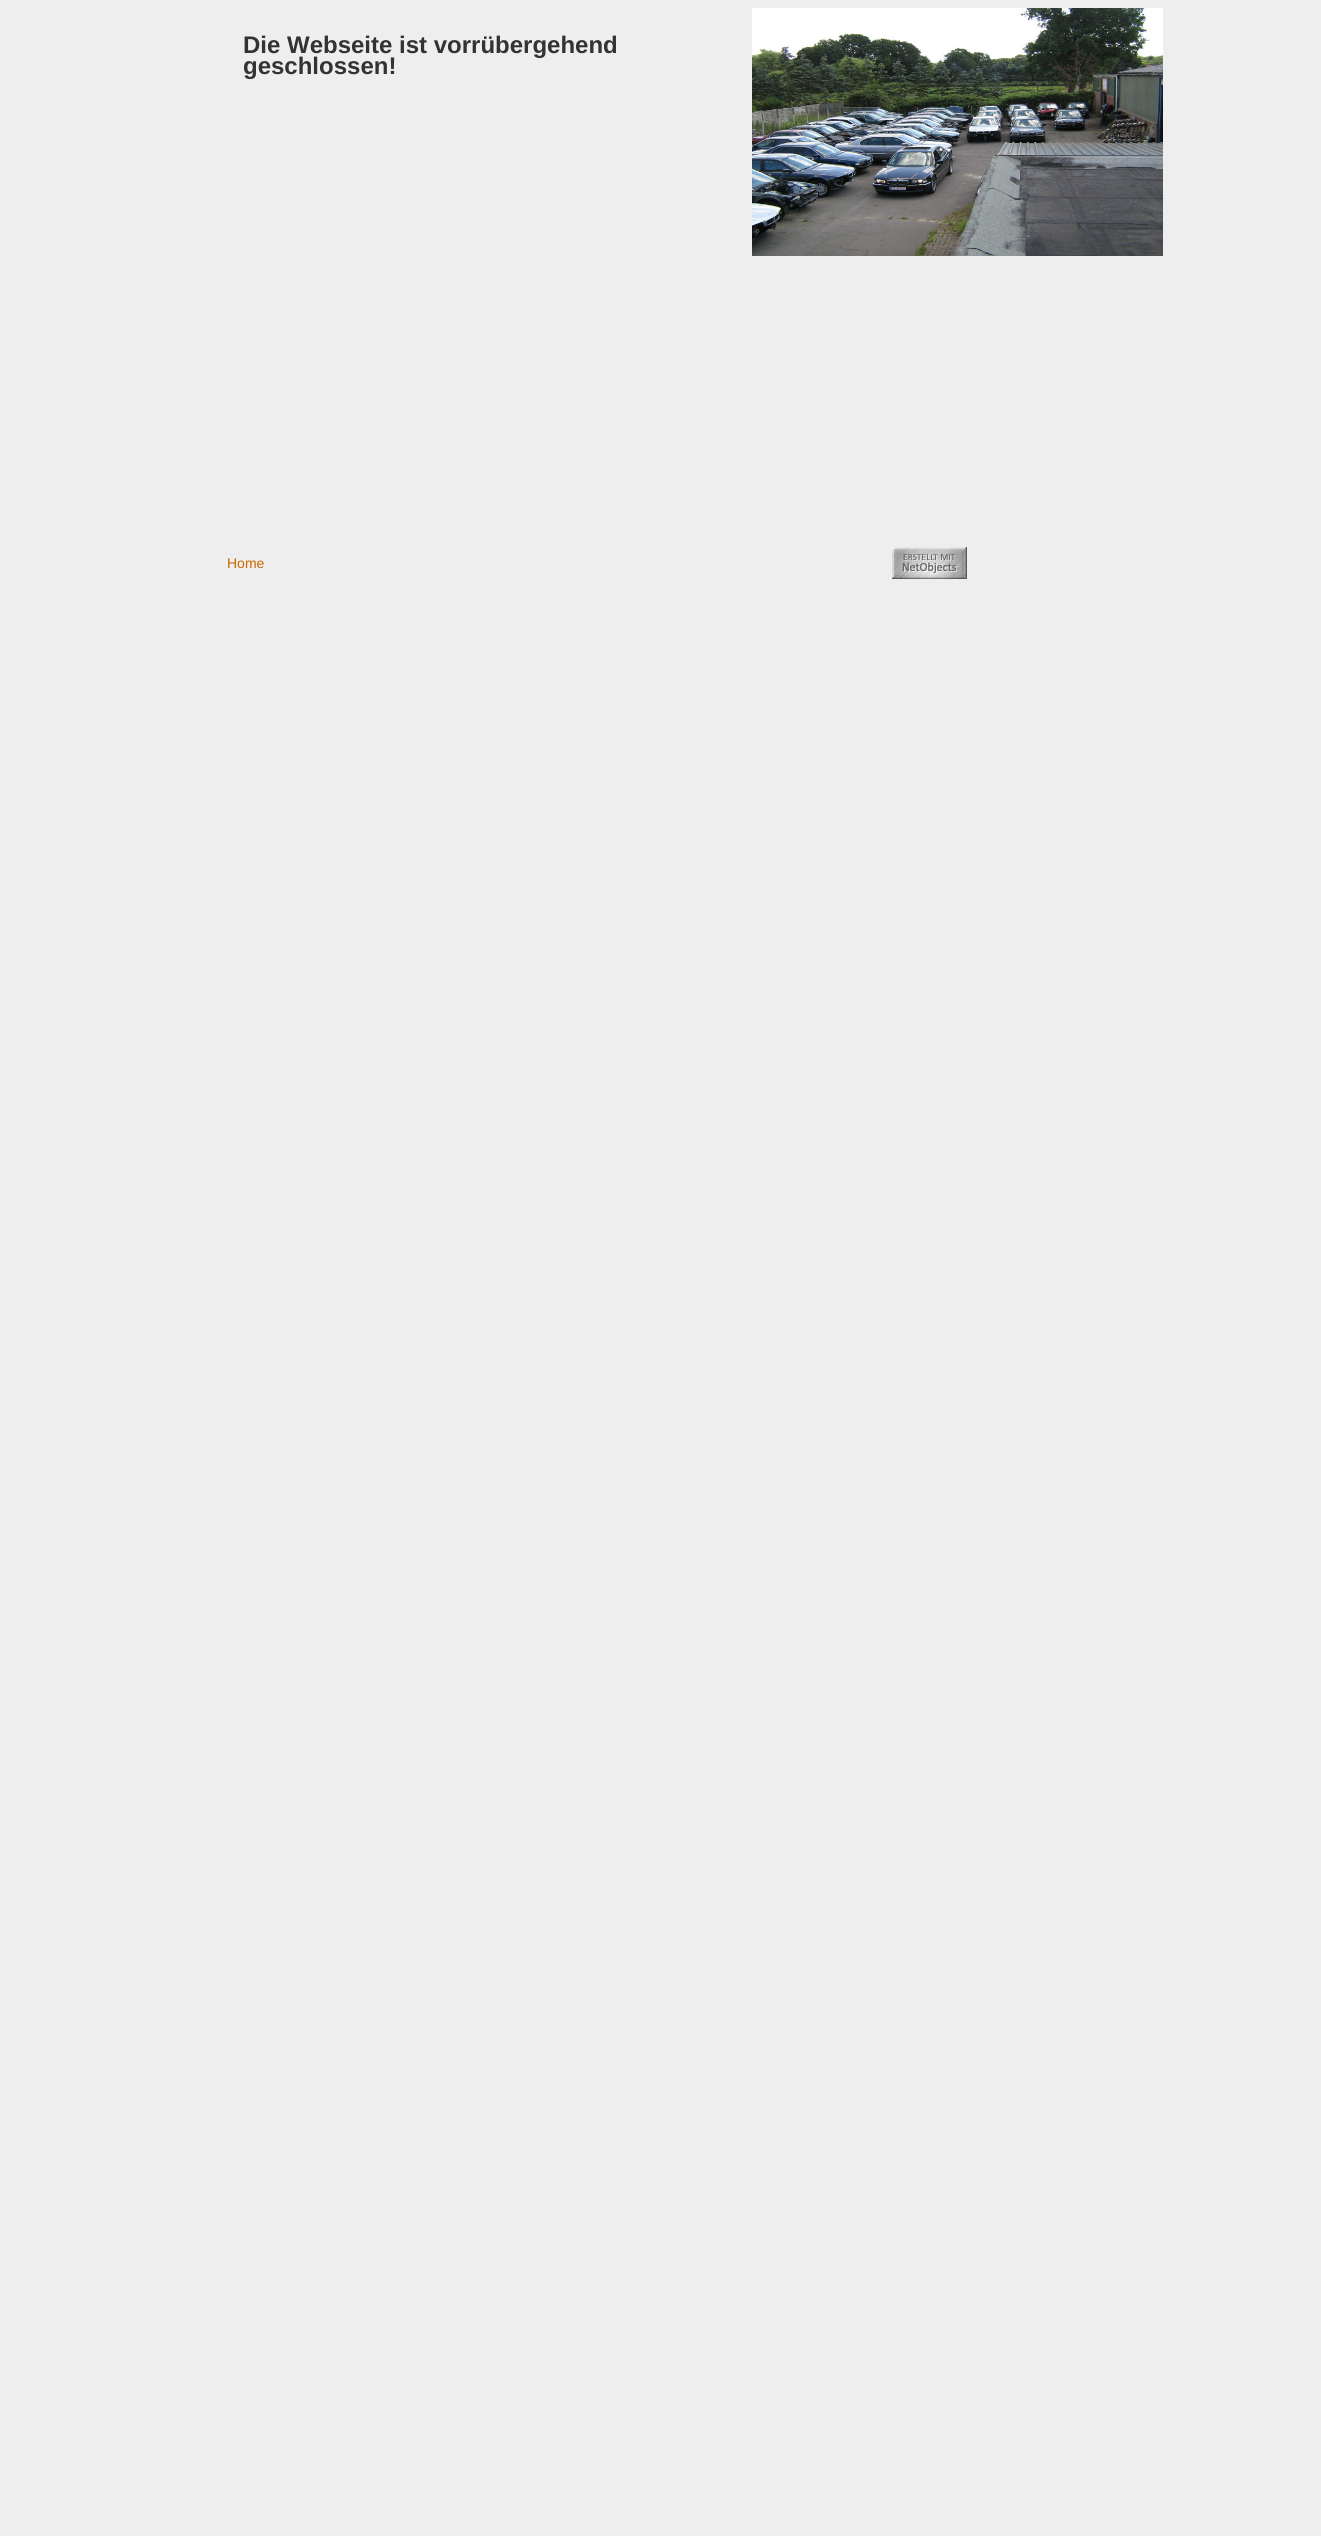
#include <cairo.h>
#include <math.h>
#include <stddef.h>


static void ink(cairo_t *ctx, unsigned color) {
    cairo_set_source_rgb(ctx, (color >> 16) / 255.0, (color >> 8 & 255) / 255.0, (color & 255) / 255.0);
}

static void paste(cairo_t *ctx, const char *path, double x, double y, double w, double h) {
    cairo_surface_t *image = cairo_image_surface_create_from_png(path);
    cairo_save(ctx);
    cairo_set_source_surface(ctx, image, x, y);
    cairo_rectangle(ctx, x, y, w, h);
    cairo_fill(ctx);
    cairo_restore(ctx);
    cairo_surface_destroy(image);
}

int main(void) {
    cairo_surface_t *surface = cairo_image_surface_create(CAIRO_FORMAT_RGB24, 1321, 2536);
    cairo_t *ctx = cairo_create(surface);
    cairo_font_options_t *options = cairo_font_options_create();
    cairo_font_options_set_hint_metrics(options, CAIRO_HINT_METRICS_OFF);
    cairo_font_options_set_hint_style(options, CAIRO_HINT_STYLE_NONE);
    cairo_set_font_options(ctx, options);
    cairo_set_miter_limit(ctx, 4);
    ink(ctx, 0xEEEEEE);
    cairo_paint(ctx);
    cairo_select_font_face(ctx, "Liberation Sans", CAIRO_FONT_SLANT_NORMAL, CAIRO_FONT_WEIGHT_BOLD);
    cairo_set_font_size(ctx, 24);
    ink(ctx, 0x333333);
    cairo_move_to(ctx, 243, 53);
    cairo_show_text(ctx, "Die Webseite ist vorrübergehend");
    cairo_move_to(ctx, 243, 74);
    cairo_show_text(ctx, "geschlossen!");
    paste(ctx, "media/1.png", 752, 8, 411, 248);
    cairo_select_font_face(ctx, "Liberation Sans", CAIRO_FONT_SLANT_NORMAL, CAIRO_FONT_WEIGHT_NORMAL);
    cairo_set_font_size(ctx, 14);
    ink(ctx, 0xCC6600);
    cairo_move_to(ctx, 227, 568);
    cairo_show_text(ctx, "Home");
    paste(ctx, "media/2.png", 892, 547, 75, 32);
    cairo_surface_write_to_png(surface, "image.png");
    cairo_font_options_destroy(options);
    cairo_destroy(ctx);
    cairo_surface_destroy(surface);
    return 0;
}
